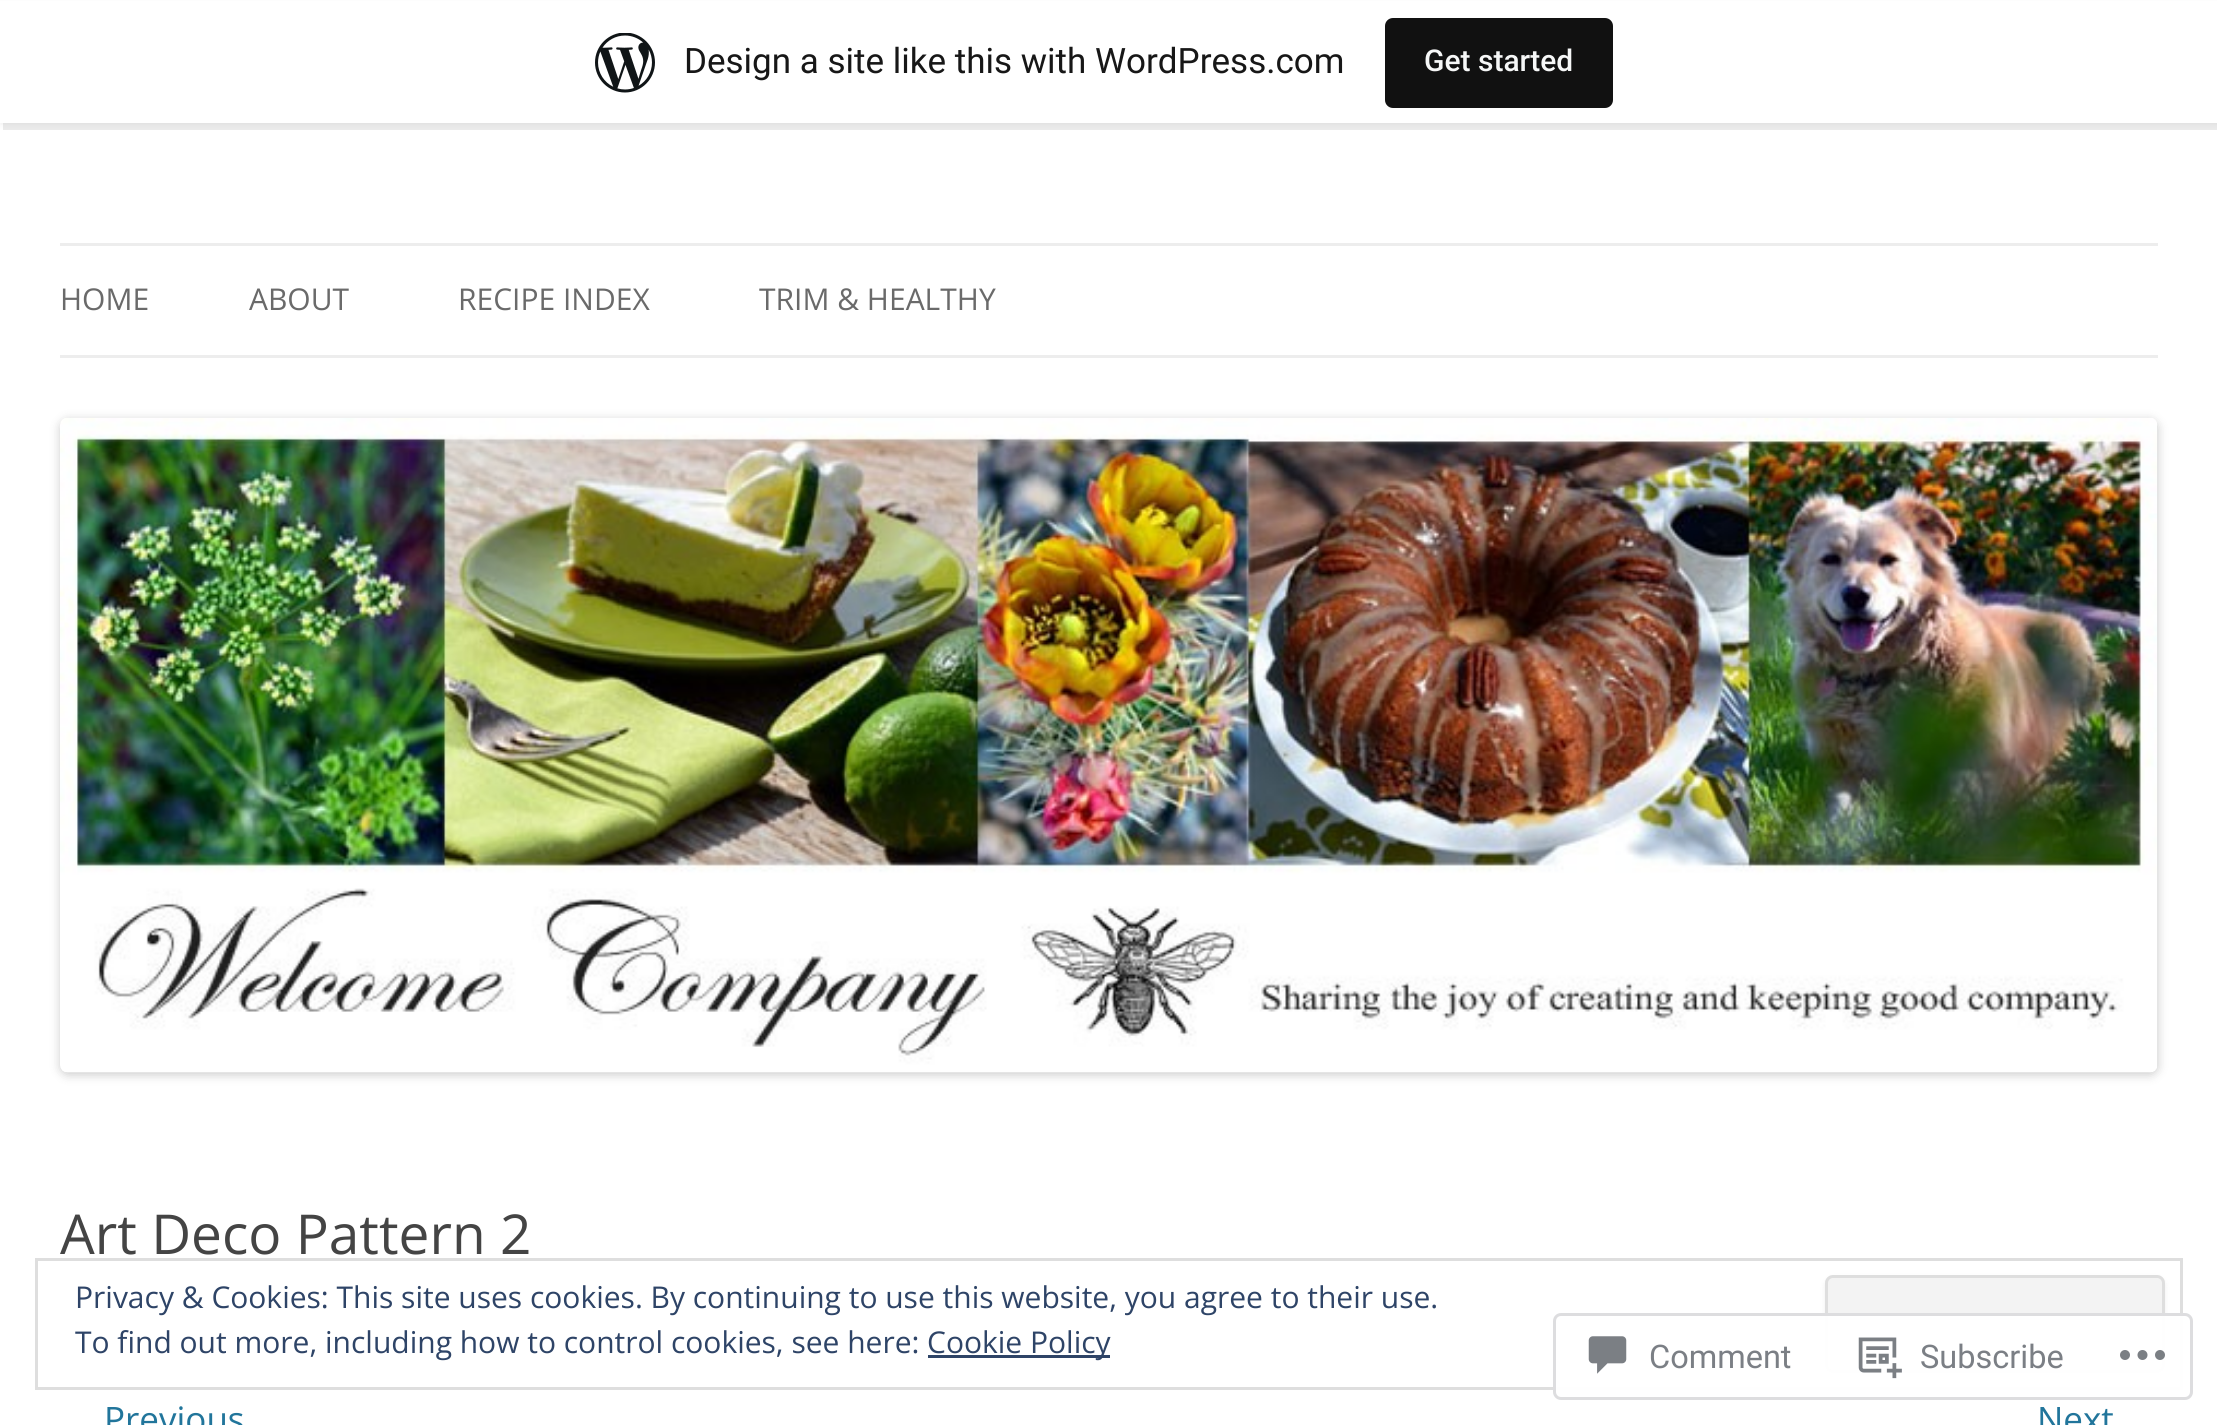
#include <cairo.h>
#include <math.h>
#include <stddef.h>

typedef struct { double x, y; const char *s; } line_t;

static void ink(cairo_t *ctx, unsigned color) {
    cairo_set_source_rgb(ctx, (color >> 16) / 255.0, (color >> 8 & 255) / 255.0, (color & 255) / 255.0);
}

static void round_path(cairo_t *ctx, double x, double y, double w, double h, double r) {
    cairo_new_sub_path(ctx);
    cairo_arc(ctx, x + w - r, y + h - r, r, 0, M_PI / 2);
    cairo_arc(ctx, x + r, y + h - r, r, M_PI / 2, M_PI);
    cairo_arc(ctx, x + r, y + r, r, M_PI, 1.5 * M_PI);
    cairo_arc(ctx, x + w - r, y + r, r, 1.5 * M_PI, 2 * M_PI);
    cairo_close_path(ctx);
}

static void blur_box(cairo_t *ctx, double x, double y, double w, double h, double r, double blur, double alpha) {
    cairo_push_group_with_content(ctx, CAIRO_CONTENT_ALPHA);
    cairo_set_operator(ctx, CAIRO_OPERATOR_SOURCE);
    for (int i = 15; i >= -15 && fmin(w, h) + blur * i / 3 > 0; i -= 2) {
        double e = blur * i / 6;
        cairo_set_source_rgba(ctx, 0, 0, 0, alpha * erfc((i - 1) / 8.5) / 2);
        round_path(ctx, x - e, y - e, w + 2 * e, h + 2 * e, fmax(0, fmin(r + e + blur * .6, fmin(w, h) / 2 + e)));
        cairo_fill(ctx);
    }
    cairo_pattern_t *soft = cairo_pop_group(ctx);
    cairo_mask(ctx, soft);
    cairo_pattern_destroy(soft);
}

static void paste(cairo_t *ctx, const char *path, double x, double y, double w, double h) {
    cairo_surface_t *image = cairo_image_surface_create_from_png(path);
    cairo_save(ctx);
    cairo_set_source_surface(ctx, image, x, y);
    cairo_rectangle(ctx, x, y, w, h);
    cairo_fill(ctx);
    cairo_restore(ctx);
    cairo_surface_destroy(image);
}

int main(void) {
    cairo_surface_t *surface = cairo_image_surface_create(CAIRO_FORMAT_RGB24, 2217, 1425);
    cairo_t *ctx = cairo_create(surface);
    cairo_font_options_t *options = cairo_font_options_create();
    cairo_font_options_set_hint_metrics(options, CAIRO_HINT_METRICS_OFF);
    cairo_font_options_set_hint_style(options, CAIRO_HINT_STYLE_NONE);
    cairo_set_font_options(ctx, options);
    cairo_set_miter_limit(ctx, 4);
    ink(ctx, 0xFFFFFF);
    cairo_paint(ctx);
    ink(ctx, 0x000000);
    blur_box(ctx, 0, 3, 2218, 122, 0, 2.5, 0.05);
    cairo_set_source_rgba(ctx, 0, 0, 0, 0.08);
    cairo_new_path(ctx);
    cairo_move_to(ctx, 3, 122);
    cairo_line_to(ctx, 3, 130);
    cairo_line_to(ctx, 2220, 130);
    cairo_line_to(ctx, 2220, 8);
    cairo_line_to(ctx, 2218, 8);
    cairo_line_to(ctx, 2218, 122);
    cairo_close_path(ctx);
    cairo_fill(ctx);
    ink(ctx, 0xFFFFFF);
    cairo_rectangle(ctx, 0, 1, 2217, 122);
    cairo_fill(ctx);
    paste(ctx, "media/1.png", 595, 33, 60, 60);
    cairo_select_font_face(ctx, "Roboto", CAIRO_FONT_SLANT_NORMAL, CAIRO_FONT_WEIGHT_NORMAL);
    cairo_set_font_size(ctx, 35);
    ink(ctx, 0x171717);
    cairo_move_to(ctx, 684, 73);
    cairo_show_text(ctx, "Design a site like this with WordPress.com");
    ink(ctx, 0x111111);
    round_path(ctx, 1385, 18, 228, 90, 8);
    cairo_fill(ctx);
    cairo_select_font_face(ctx, "Roboto Medium", CAIRO_FONT_SLANT_NORMAL, CAIRO_FONT_WEIGHT_NORMAL);
    cairo_set_font_size(ctx, 30);
    ink(ctx, 0xF6F7F7);
    cairo_move_to(ctx, 1424, 71);
    cairo_show_text(ctx, "Get started");
    ink(ctx, 0xEDEDED);
    cairo_rectangle(ctx, 60, 243, 2098, 3);
    cairo_fill(ctx);
    cairo_rectangle(ctx, 60, 355, 2098, 3);
    cairo_fill(ctx);
    cairo_select_font_face(ctx, "Open Sans", CAIRO_FONT_SLANT_NORMAL, CAIRO_FONT_WEIGHT_NORMAL);
    ink(ctx, 0x6A6A6A);
    {
        static const line_t items[] = {
            {60, 310, "HOME"},
            {249, 310, "ABOUT"},
            {458, 310, "RECIPE INDEX"},
            {759, 310, "TRIM & HEALTHY"},
        };
        for (size_t i = 0; i < sizeof items / sizeof *items; i++) {
            cairo_move_to(ctx, items[i].x, items[i].y);
            cairo_show_text(ctx, items[i].s);
        }
    }
    ink(ctx, 0x000000);
    blur_box(ctx, 60, 420, 2098, 655, 8, 5, 0.2);
    paste(ctx, "media/2.png", 60, 418, 2097, 655);
    cairo_set_font_size(ctx, 55);
    ink(ctx, 0x444444);
    cairo_move_to(ctx, 60, 1254);
    cairo_show_text(ctx, "Art Deco Pattern 2");
    cairo_set_font_size(ctx, 35);
    ink(ctx, 0x21759B);
    cairo_move_to(ctx, 104, 1432);
    cairo_show_text(ctx, "Previous");
    cairo_move_to(ctx, 2037, 1432);
    cairo_show_text(ctx, "Next");
    cairo_rectangle(ctx, 36.5, 1259.5, 2145, 129);
    ink(ctx, 0xDEDEDE);
    cairo_set_line_width(ctx, 3);
    cairo_stroke(ctx);
    cairo_set_font_size(ctx, 30);
    ink(ctx, 0x2E4467);
    cairo_move_to(ctx, 75, 1308);
    cairo_show_text(ctx, "Privacy & Cookies: This site uses cookies. By continuing to use this website, you agree to their use.");
    ink(ctx, 0x404040);
    blur_box(ctx, 1825, 1278, 340, 97, 8, 2.5, 0.1);
    ink(ctx, 0xF3F3F3);
    round_path(ctx, 1826.5, 1276.5, 337, 95, 6.5);
    cairo_fill_preserve(ctx);
    ink(ctx, 0xDEDEDE);
    cairo_stroke(ctx);
    ink(ctx, 0x2E4467);
    cairo_move_to(ctx, 75, 1353);
    cairo_show_text(ctx, "To find out more, including how to control cookies, see here:");
    cairo_rectangle(ctx, 928, 1355, 182, 3);
    cairo_fill(ctx);
    cairo_move_to(ctx, 927, 1353);
    cairo_show_text(ctx, "Cookie Policy");
    cairo_set_source_rgba(ctx, 1, 1, 1, 0.98);
    round_path(ctx, 1553, 1313, 640, 87, 8);
    cairo_fill(ctx);
    round_path(ctx, 1554.5, 1314.5, 637, 84, 6.5);
    cairo_set_source_rgba(ctx, 0.863, 0.863, 0.871, 0.98);
    cairo_stroke(ctx);
    paste(ctx, "media/3.png", 1588, 1336, 39, 38);
    cairo_select_font_face(ctx, "Roboto", CAIRO_FONT_SLANT_NORMAL, CAIRO_FONT_WEIGHT_NORMAL);
    cairo_set_font_size(ctx, 32.5);
    ink(ctx, 0x7B7F85);
    cairo_move_to(ctx, 1649, 1368);
    cairo_show_text(ctx, "Comment");
    paste(ctx, "media/4.png", 1858, 1337, 44, 42);
    cairo_move_to(ctx, 1920, 1368);
    cairo_show_text(ctx, "Subscribe");
    paste(ctx, "media/5.png", 2120, 1350, 45, 10);
    cairo_surface_write_to_png(surface, "image.png");
    cairo_font_options_destroy(options);
    cairo_destroy(ctx);
    cairo_surface_destroy(surface);
    return 0;
}
